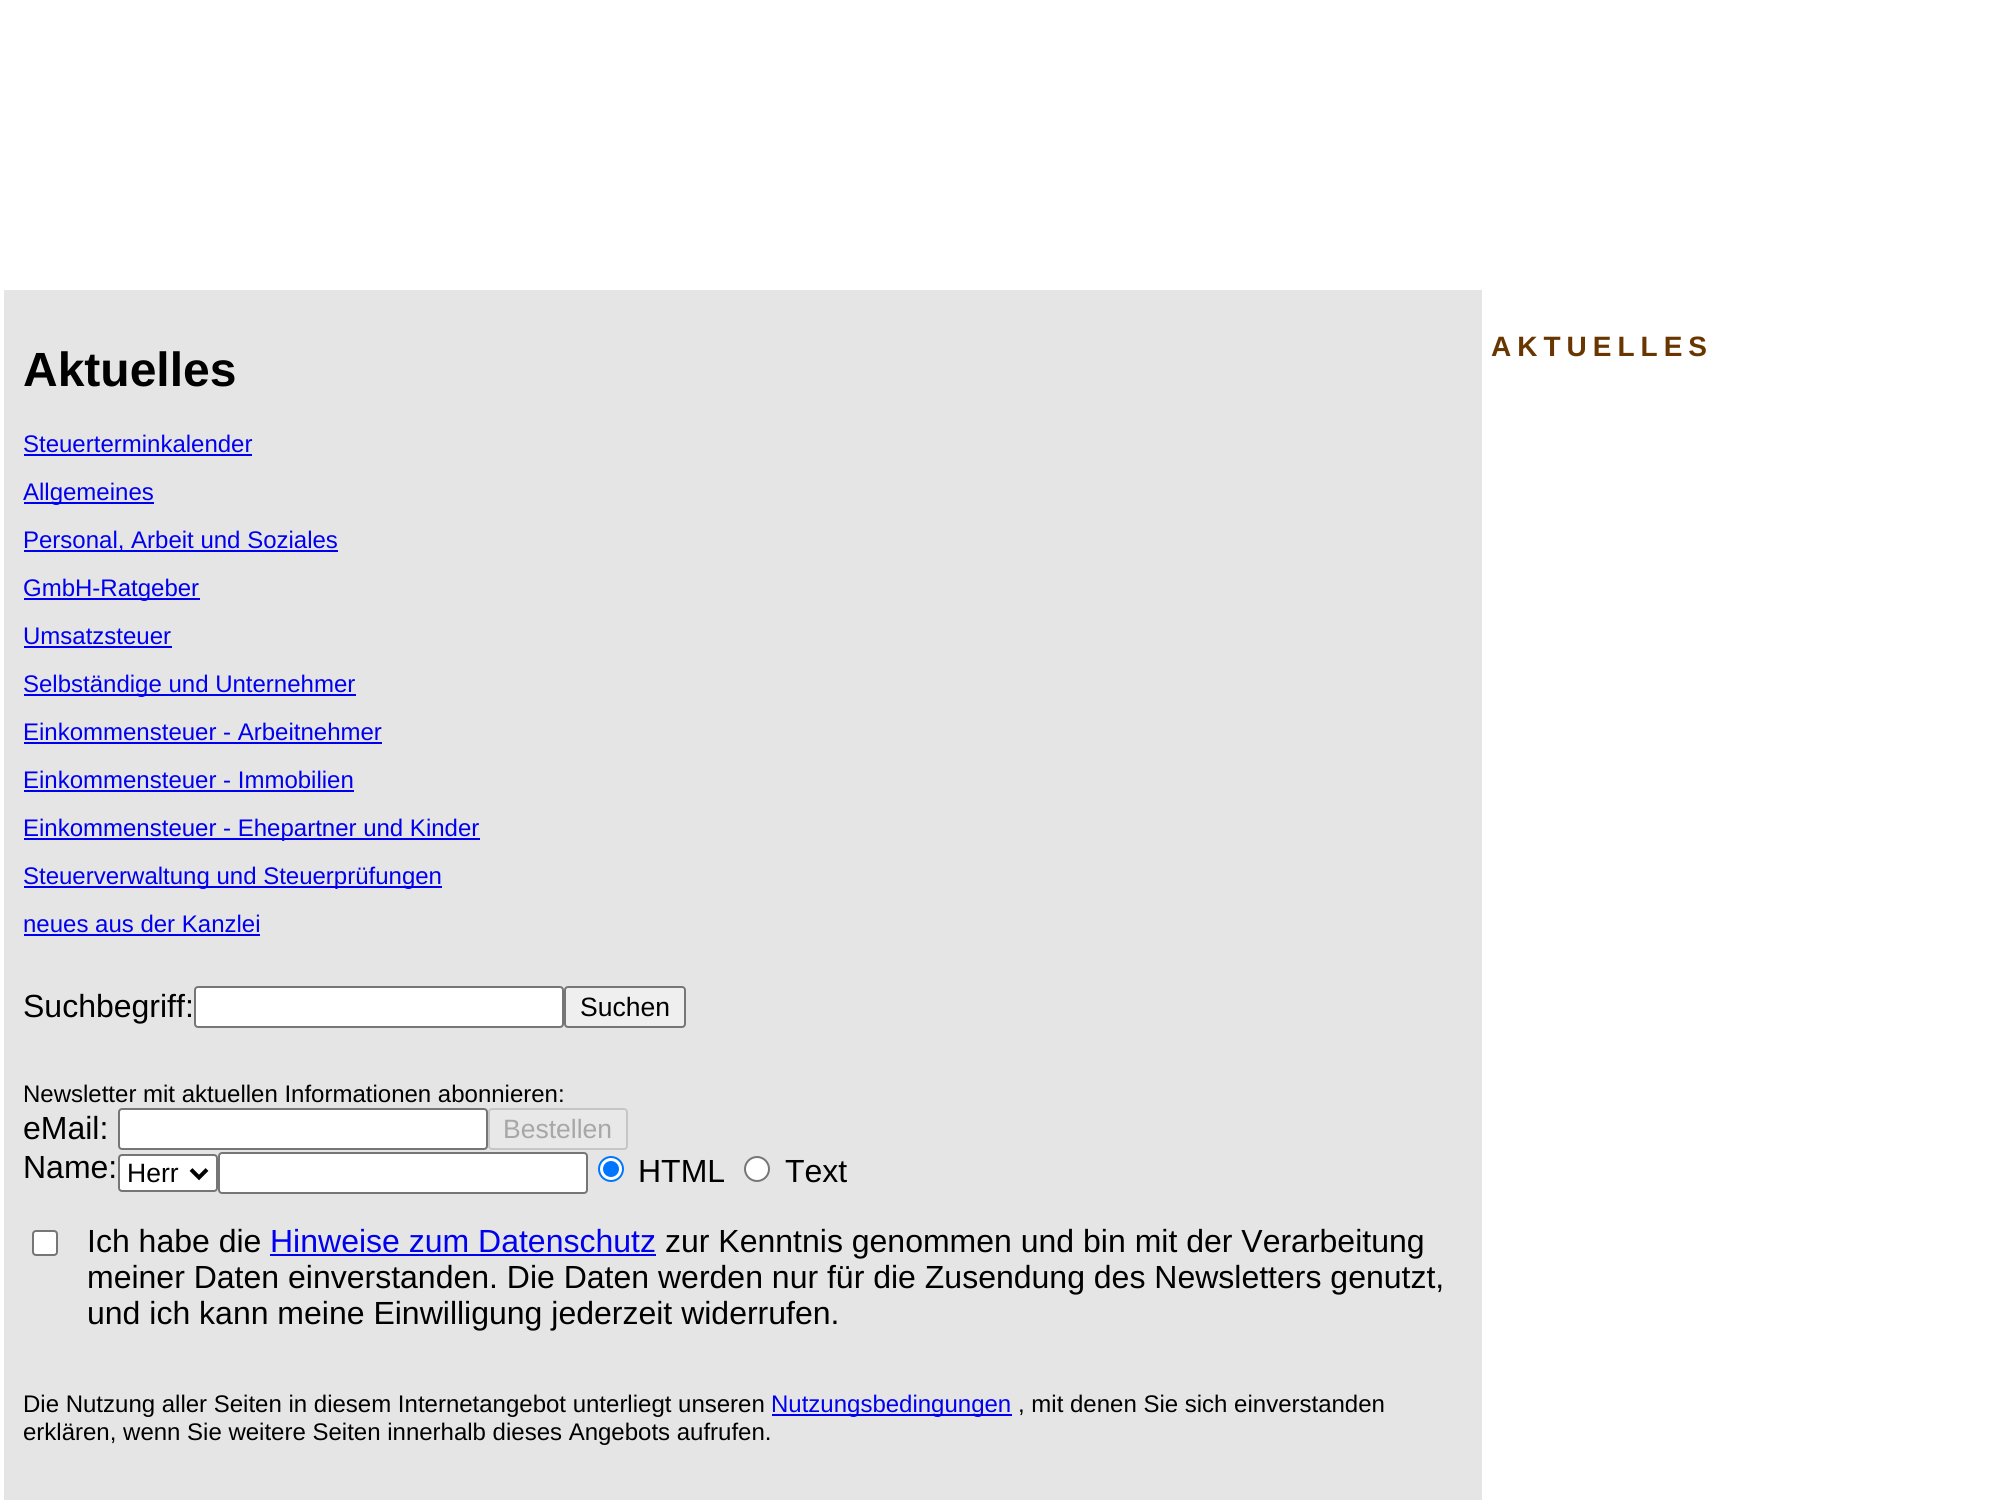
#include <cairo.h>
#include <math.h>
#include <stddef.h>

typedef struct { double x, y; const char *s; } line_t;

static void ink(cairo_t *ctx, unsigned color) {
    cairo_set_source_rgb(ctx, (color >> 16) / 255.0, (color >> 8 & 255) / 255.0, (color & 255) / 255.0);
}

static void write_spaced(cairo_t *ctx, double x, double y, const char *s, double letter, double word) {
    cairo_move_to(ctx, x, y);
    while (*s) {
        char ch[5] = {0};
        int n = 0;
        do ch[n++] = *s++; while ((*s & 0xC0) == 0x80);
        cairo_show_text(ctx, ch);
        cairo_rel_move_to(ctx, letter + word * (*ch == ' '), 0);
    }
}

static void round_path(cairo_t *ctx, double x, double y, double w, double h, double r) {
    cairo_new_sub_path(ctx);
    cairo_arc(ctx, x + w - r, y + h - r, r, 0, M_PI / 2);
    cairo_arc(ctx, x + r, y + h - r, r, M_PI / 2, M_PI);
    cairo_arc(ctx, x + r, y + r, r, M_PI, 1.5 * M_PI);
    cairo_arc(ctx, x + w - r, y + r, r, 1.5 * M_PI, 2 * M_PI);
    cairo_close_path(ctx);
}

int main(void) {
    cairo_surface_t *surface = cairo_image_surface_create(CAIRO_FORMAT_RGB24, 2009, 1500);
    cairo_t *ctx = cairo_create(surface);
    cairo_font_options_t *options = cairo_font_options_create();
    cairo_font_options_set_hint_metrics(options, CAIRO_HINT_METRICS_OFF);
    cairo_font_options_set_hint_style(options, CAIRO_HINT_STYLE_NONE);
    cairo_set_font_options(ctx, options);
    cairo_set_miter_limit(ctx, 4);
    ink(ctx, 0xFFFFFF);
    cairo_paint(ctx);
    cairo_select_font_face(ctx, "Liberation Sans", CAIRO_FONT_SLANT_NORMAL, CAIRO_FONT_WEIGHT_BOLD);
    cairo_set_font_size(ctx, 28);
    ink(ctx, 0x693601);
    write_spaced(ctx, 1491, 356, "AKTUELLES", 6, 0);
    ink(ctx, 0xE5E5E5);
    cairo_rectangle(ctx, 4, 290, 1478, 1210);
    cairo_fill(ctx);
    cairo_set_font_size(ctx, 48);
    ink(ctx, 0x000000);
    cairo_move_to(ctx, 23, 386);
    cairo_show_text(ctx, "Aktuelles");
    cairo_select_font_face(ctx, "Liberation Sans", CAIRO_FONT_SLANT_NORMAL, CAIRO_FONT_WEIGHT_NORMAL);
    cairo_set_font_size(ctx, 24);
    ink(ctx, 0x0000EE);
    cairo_move_to(ctx, 23, 452);
    cairo_show_text(ctx, "Steuerterminkalender");
    cairo_rectangle(ctx, 24, 454, 228, 2);
    cairo_fill(ctx);
    cairo_rectangle(ctx, 24, 502, 130, 2);
    cairo_fill(ctx);
    cairo_move_to(ctx, 23, 500);
    cairo_show_text(ctx, "Allgemeines");
    cairo_rectangle(ctx, 24, 550, 314, 2);
    cairo_fill(ctx);
    cairo_move_to(ctx, 23, 548);
    cairo_show_text(ctx, "Personal, Arbeit und Soziales");
    cairo_rectangle(ctx, 24, 598, 176, 2);
    cairo_fill(ctx);
    cairo_move_to(ctx, 23, 596);
    cairo_show_text(ctx, "GmbH-Ratgeber");
    cairo_move_to(ctx, 23, 644);
    cairo_show_text(ctx, "Umsatzsteuer");
    cairo_rectangle(ctx, 24, 646, 148, 2);
    cairo_fill(ctx);
    cairo_rectangle(ctx, 24, 694, 332, 2);
    cairo_fill(ctx);
    cairo_move_to(ctx, 23, 692);
    cairo_show_text(ctx, "Selbständige und Unternehmer");
    cairo_move_to(ctx, 23, 740);
    cairo_show_text(ctx, "Einkommensteuer - Arbeitnehmer");
    cairo_rectangle(ctx, 24, 742, 358, 2);
    cairo_fill(ctx);
    cairo_move_to(ctx, 23, 788);
    cairo_show_text(ctx, "Einkommensteuer - Immobilien");
    cairo_rectangle(ctx, 24, 790, 330, 2);
    cairo_fill(ctx);
    cairo_rectangle(ctx, 24, 838, 456, 2);
    cairo_fill(ctx);
    cairo_move_to(ctx, 23, 836);
    cairo_show_text(ctx, "Einkommensteuer - Ehepartner und Kinder");
    cairo_rectangle(ctx, 24, 886, 418, 2);
    cairo_fill(ctx);
    cairo_move_to(ctx, 23, 884);
    cairo_show_text(ctx, "Steuerverwaltung und Steuerprüfungen");
    cairo_move_to(ctx, 23, 932);
    cairo_show_text(ctx, "neues aus der Kanzlei");
    cairo_rectangle(ctx, 24, 934, 236, 2);
    cairo_fill(ctx);
    cairo_set_font_size(ctx, 32);
    ink(ctx, 0x000000);
    cairo_move_to(ctx, 23, 1017);
    cairo_show_text(ctx, "Suchbegriff:");
    ink(ctx, 0xFFFFFF);
    round_path(ctx, 195, 987, 368, 40, 3);
    cairo_fill_preserve(ctx);
    ink(ctx, 0x767676);
    cairo_stroke(ctx);
    ink(ctx, 0xEFEFEF);
    round_path(ctx, 565, 987, 120, 40, 3);
    cairo_fill_preserve(ctx);
    ink(ctx, 0x767676);
    cairo_stroke(ctx);
    cairo_set_font_size(ctx, 26.5);
    ink(ctx, 0x000000);
    cairo_move_to(ctx, 580, 1016);
    cairo_show_text(ctx, "Suchen");
    cairo_set_font_size(ctx, 24);
    cairo_move_to(ctx, 23, 1102);
    cairo_show_text(ctx, "Newsletter mit aktuellen Informationen abonnieren:");
    cairo_set_font_size(ctx, 32);
    cairo_move_to(ctx, 23, 1139);
    cairo_show_text(ctx, "eMail:");
    ink(ctx, 0xFFFFFF);
    round_path(ctx, 119, 1109, 368, 40, 3);
    cairo_fill_preserve(ctx);
    ink(ctx, 0x767676);
    cairo_stroke(ctx);
    ink(ctx, 0xE8E8E8);
    round_path(ctx, 489, 1109, 138, 40, 3);
    cairo_fill_preserve(ctx);
    ink(ctx, 0xC6C6C6);
    cairo_stroke(ctx);
    cairo_set_font_size(ctx, 26.5);
    ink(ctx, 0xA7A7A7);
    cairo_move_to(ctx, 503, 1138);
    cairo_show_text(ctx, "Bestellen");
    cairo_set_font_size(ctx, 32);
    ink(ctx, 0x000000);
    cairo_move_to(ctx, 23, 1178);
    cairo_show_text(ctx, "Name:");
    ink(ctx, 0xFFFFFF);
    round_path(ctx, 119, 1155, 98, 36, 3);
    cairo_fill_preserve(ctx);
    ink(ctx, 0x767676);
    cairo_stroke(ctx);
    cairo_new_path(ctx);
    cairo_move_to(ctx, 191, 1169.5);
    cairo_line_to(ctx, 199, 1177.5);
    cairo_line_to(ctx, 207, 1169.5);
    ink(ctx, 0x000000);
    cairo_set_line_width(ctx, 4);
    cairo_stroke(ctx);
    cairo_set_font_size(ctx, 26.5);
    cairo_move_to(ctx, 127, 1182);
    cairo_show_text(ctx, "Herr");
    ink(ctx, 0xFFFFFF);
    round_path(ctx, 219, 1153, 368, 40, 3);
    cairo_fill_preserve(ctx);
    ink(ctx, 0x767676);
    cairo_set_line_width(ctx, 2);
    cairo_stroke(ctx);
    ink(ctx, 0xFFFFFF);
    cairo_arc(ctx, 611, 1169, 12, 0, 2 * M_PI);
    cairo_fill_preserve(ctx);
    ink(ctx, 0x0075FF);
    cairo_stroke(ctx);
    cairo_arc(ctx, 611, 1169, 8, 0, 2 * M_PI);
    cairo_fill(ctx);
    cairo_set_font_size(ctx, 32);
    ink(ctx, 0x000000);
    cairo_move_to(ctx, 638, 1182);
    cairo_show_text(ctx, "HTML");
    ink(ctx, 0xFFFFFF);
    cairo_new_path(ctx);
    cairo_arc(ctx, 757, 1169, 12, 0, 2 * M_PI);
    cairo_fill_preserve(ctx);
    ink(ctx, 0x767676);
    cairo_stroke(ctx);
    ink(ctx, 0x000000);
    cairo_move_to(ctx, 785, 1182);
    cairo_show_text(ctx, "Text");
    ink(ctx, 0xFFFFFF);
    round_path(ctx, 33, 1231, 24, 24, 3);
    cairo_fill_preserve(ctx);
    ink(ctx, 0x767676);
    cairo_stroke(ctx);
    ink(ctx, 0x000000);
    cairo_move_to(ctx, 87, 1252);
    cairo_show_text(ctx, "Ich habe die");
    ink(ctx, 0x0000EE);
    cairo_move_to(ctx, 270, 1252);
    cairo_show_text(ctx, "Hinweise zum Datenschutz");
    cairo_rectangle(ctx, 270, 1254, 386, 2);
    cairo_fill(ctx);
    ink(ctx, 0x000000);
    {
        static const line_t items[] = {
            {665, 1252, "zur Kenntnis genommen und bin mit der Verarbeitung"},
            {87, 1288, "meiner Daten einverstanden. Die Daten werden nur für die Zusendung des Newsletters genutzt,"},
            {87, 1324, "und ich kann meine Einwilligung jederzeit widerrufen."},
        };
        for (size_t i = 0; i < sizeof items / sizeof *items; i++) {
            cairo_move_to(ctx, items[i].x, items[i].y);
            cairo_show_text(ctx, items[i].s);
        }
    }
    cairo_set_font_size(ctx, 24);
    cairo_move_to(ctx, 23, 1412);
    cairo_show_text(ctx, "Die Nutzung aller Seiten in diesem Internetangebot unterliegt unseren");
    ink(ctx, 0x0000EE);
    cairo_rectangle(ctx, 772, 1414, 240, 2);
    cairo_fill(ctx);
    cairo_move_to(ctx, 771, 1412);
    cairo_show_text(ctx, "Nutzungsbedingungen");
    ink(ctx, 0x000000);
    cairo_move_to(ctx, 1018, 1412);
    cairo_show_text(ctx, ", mit denen Sie sich einverstanden");
    cairo_move_to(ctx, 23, 1440);
    cairo_show_text(ctx, "erklären, wenn Sie weitere Seiten innerhalb dieses Angebots aufrufen.");
    cairo_surface_write_to_png(surface, "image.png");
    cairo_font_options_destroy(options);
    cairo_destroy(ctx);
    cairo_surface_destroy(surface);
    return 0;
}
